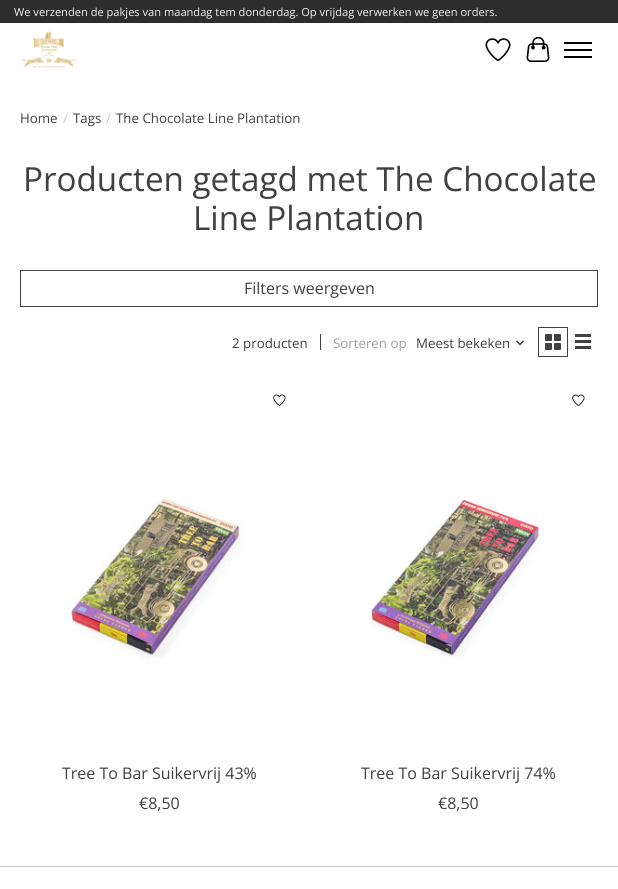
#include <cairo.h>
#include <math.h>
#include <stddef.h>

typedef struct { double x, y, w, h; unsigned color; } box_t;

static void ink(cairo_t *ctx, unsigned color) {
    cairo_set_source_rgb(ctx, (color >> 16) / 255.0, (color >> 8 & 255) / 255.0, (color & 255) / 255.0);
}

static void paste(cairo_t *ctx, const char *path, double x, double y, double w, double h) {
    cairo_surface_t *image = cairo_image_surface_create_from_png(path);
    cairo_save(ctx);
    cairo_set_source_surface(ctx, image, x, y);
    cairo_rectangle(ctx, x, y, w, h);
    cairo_fill(ctx);
    cairo_restore(ctx);
    cairo_surface_destroy(image);
}

int main(void) {
    cairo_surface_t *surface = cairo_image_surface_create(CAIRO_FORMAT_RGB24, 618, 889);
    cairo_t *ctx = cairo_create(surface);
    cairo_font_options_t *options = cairo_font_options_create();
    cairo_font_options_set_hint_metrics(options, CAIRO_HINT_METRICS_OFF);
    cairo_font_options_set_hint_style(options, CAIRO_HINT_STYLE_NONE);
    cairo_set_font_options(ctx, options);
    cairo_set_miter_limit(ctx, 4);
    ink(ctx, 0xFFFFFF);
    cairo_paint(ctx);
    ink(ctx, 0x2D2D2D);
    cairo_rectangle(ctx, 0, 0, 618, 23);
    cairo_fill(ctx);
    cairo_select_font_face(ctx, "Open Sans", CAIRO_FONT_SLANT_NORMAL, CAIRO_FONT_WEIGHT_NORMAL);
    cairo_set_font_size(ctx, 11.1);
    ink(ctx, 0xF2F2F2);
    cairo_move_to(ctx, 14, 16);
    cairo_show_text(ctx, "We verzenden de pakjes van maandag tem donderdag. Op vrijdag verwerken we geen orders.");
    paste(ctx, "media/1.png", 21, 31, 56, 37);
    paste(ctx, "media/2.png", 485, 38, 26, 24);
    paste(ctx, "media/3.png", 526, 37, 24, 25);
    {
        static const box_t items[] = {
            {564, 49, 28, 2, 0x000000},
            {564, 42, 28, 2, 0x000000},
            {564, 56, 28, 2, 0x000000},
        };
        for (size_t i = 0; i < sizeof items / sizeof *items; i++) {
            ink(ctx, items[i].color);
            cairo_rectangle(ctx, items[i].x, items[i].y, items[i].w, items[i].h);
            cairo_fill(ctx);
        }
    }
    cairo_set_font_size(ctx, 13.3);
    ink(ctx, 0x414141);
    cairo_move_to(ctx, 20, 123);
    cairo_show_text(ctx, "Home");
    ink(ctx, 0xC6C6C6);
    cairo_move_to(ctx, 63, 123);
    cairo_show_text(ctx, "/");
    ink(ctx, 0x414141);
    cairo_move_to(ctx, 73, 123);
    cairo_show_text(ctx, "Tags");
    ink(ctx, 0xC6C6C6);
    cairo_move_to(ctx, 106, 123);
    cairo_show_text(ctx, "/");
    ink(ctx, 0x414141);
    cairo_move_to(ctx, 116, 123);
    cairo_show_text(ctx, "The Chocolate Line Plantation");
    cairo_set_font_size(ctx, 33.2);
    cairo_move_to(ctx, 23, 191);
    cairo_show_text(ctx, "Producten getagd met The Chocolate");
    cairo_move_to(ctx, 193, 230);
    cairo_show_text(ctx, "Line Plantation");
    cairo_rectangle(ctx, 20.5, 270.5, 577, 36);
    cairo_set_line_width(ctx, 1);
    cairo_stroke(ctx);
    cairo_set_font_size(ctx, 16);
    cairo_move_to(ctx, 244, 294);
    cairo_show_text(ctx, "Filters weergeven");
    cairo_set_font_size(ctx, 13.3);
    cairo_move_to(ctx, 232, 348);
    cairo_show_text(ctx, "2 producten");
    cairo_rectangle(ctx, 320, 334, 1, 16);
    cairo_fill(ctx);
    ink(ctx, 0xA0A0A0);
    cairo_move_to(ctx, 333, 348);
    cairo_show_text(ctx, "Sorteren op");
    ink(ctx, 0x414141);
    cairo_move_to(ctx, 416, 348);
    cairo_show_text(ctx, "Meest bekeken");
    paste(ctx, "media/4.png", 516, 340, 8, 6);
    cairo_rectangle(ctx, 538.5, 327.5, 29, 29);
    cairo_stroke(ctx);
    paste(ctx, "media/5.png", 545, 334, 16, 16);
    {
        static const box_t items[] = {
            {575, 334, 16, 3, 0x414141},
            {575, 340, 16, 3, 0x414141},
            {575, 346, 16, 3, 0x414141},
        };
        for (size_t i = 0; i < sizeof items / sizeof *items; i++) {
            ink(ctx, items[i].color);
            cairo_rectangle(ctx, items[i].x, items[i].y, items[i].w, items[i].h);
            cairo_fill(ctx);
        }
    }
    paste(ctx, "media/6.png", 20, 381, 279, 371);
    paste(ctx, "media/7.png", 273, 394, 13, 12);
    cairo_set_font_size(ctx, 16);
    cairo_move_to(ctx, 62, 779);
    cairo_show_text(ctx, "Tree To Bar Suikervrij 43%");
    cairo_move_to(ctx, 139, 809);
    cairo_show_text(ctx, "€8,50");
    paste(ctx, "media/8.png", 319, 381, 279, 371);
    paste(ctx, "media/7.png", 572, 394, 13, 12);
    cairo_move_to(ctx, 361, 779);
    cairo_show_text(ctx, "Tree To Bar Suikervrij 74%");
    cairo_move_to(ctx, 438, 809);
    cairo_show_text(ctx, "€8,50");
    ink(ctx, 0xCCCCCC);
    cairo_rectangle(ctx, 0, 866, 618, 1);
    cairo_fill(ctx);
    cairo_surface_write_to_png(surface, "image.png");
    cairo_font_options_destroy(options);
    cairo_destroy(ctx);
    cairo_surface_destroy(surface);
    return 0;
}
